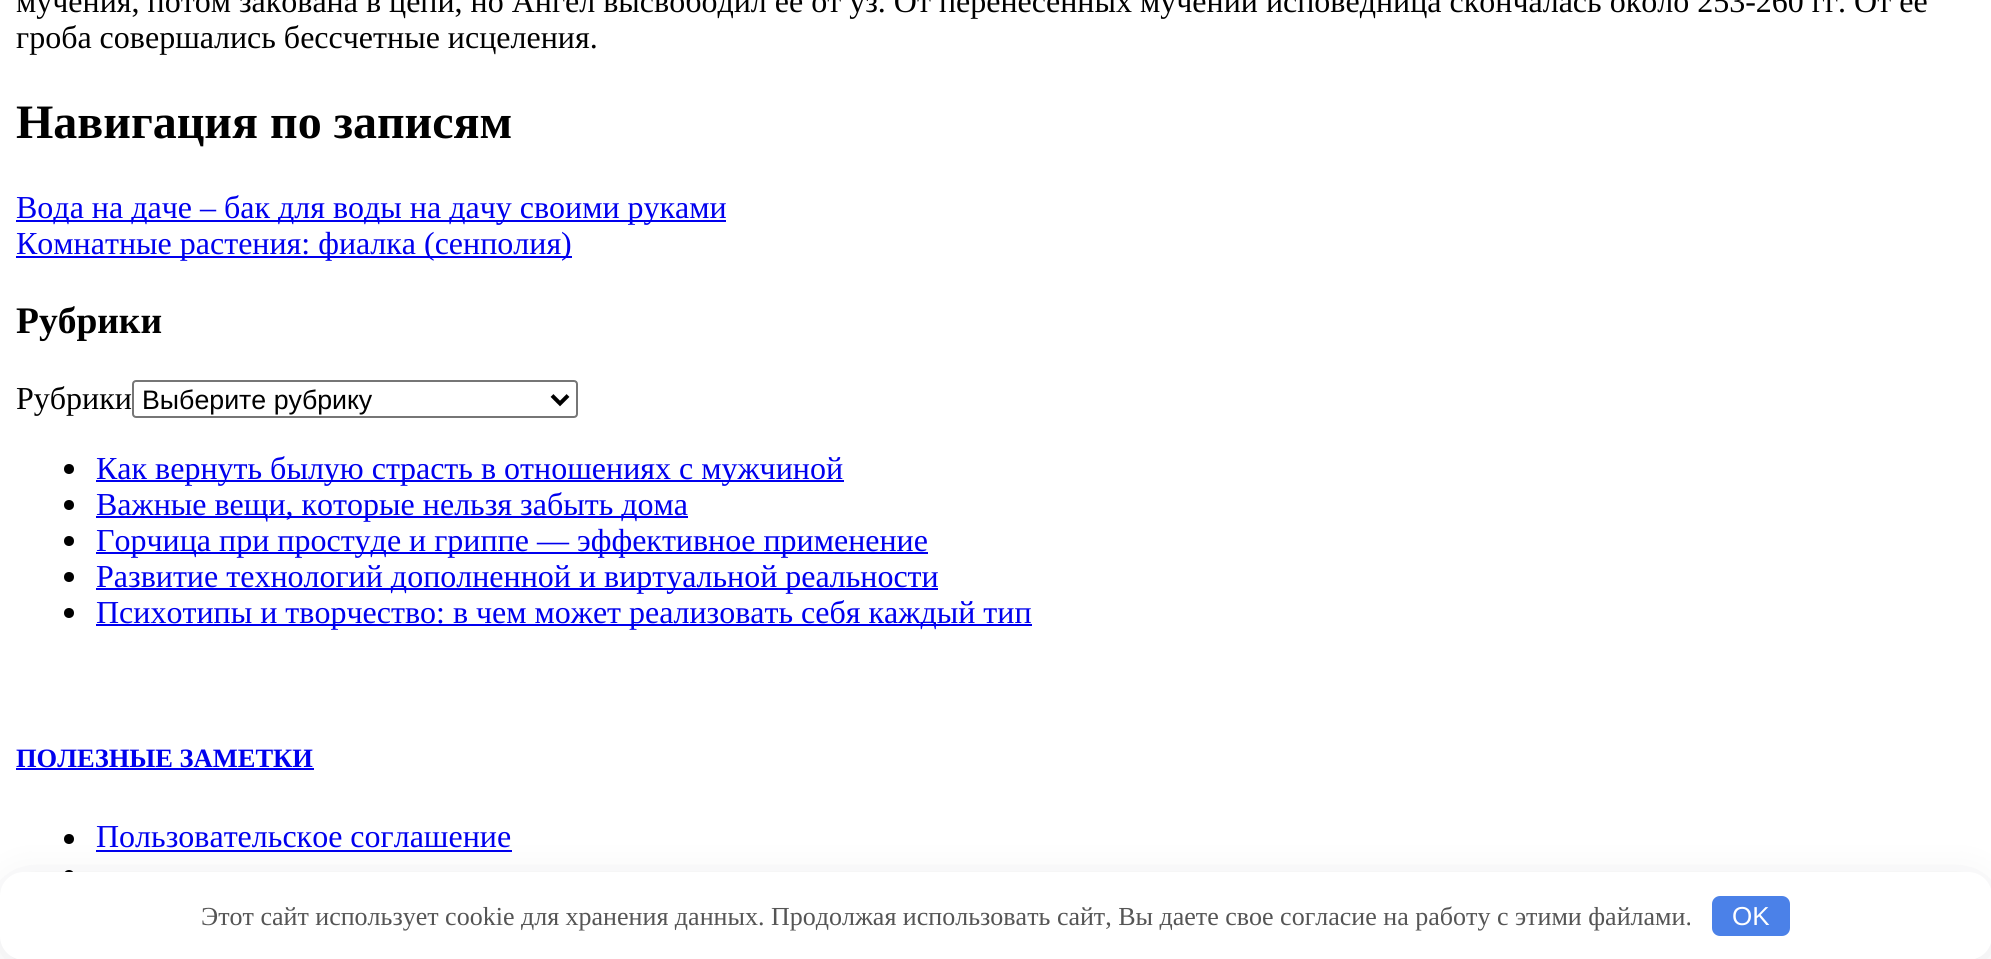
#include <cairo.h>
#include <math.h>
#include <stddef.h>


static void ink(cairo_t *ctx, unsigned color) {
    cairo_set_source_rgb(ctx, (color >> 16) / 255.0, (color >> 8 & 255) / 255.0, (color & 255) / 255.0);
}

static void round_path(cairo_t *ctx, double x, double y, double w, double h, double r) {
    cairo_new_sub_path(ctx);
    cairo_arc(ctx, x + w - r, y + h - r, r, 0, M_PI / 2);
    cairo_arc(ctx, x + r, y + h - r, r, M_PI / 2, M_PI);
    cairo_arc(ctx, x + r, y + r, r, M_PI, 1.5 * M_PI);
    cairo_arc(ctx, x + w - r, y + r, r, 1.5 * M_PI, 2 * M_PI);
    cairo_close_path(ctx);
}

static void blur_box(cairo_t *ctx, double x, double y, double w, double h, double r, double blur, double alpha) {
    cairo_push_group_with_content(ctx, CAIRO_CONTENT_ALPHA);
    cairo_set_operator(ctx, CAIRO_OPERATOR_SOURCE);
    for (int i = 15; i >= -15 && fmin(w, h) + blur * i / 3 > 0; i -= 2) {
        double e = blur * i / 6;
        cairo_set_source_rgba(ctx, 0, 0, 0, alpha * erfc((i - 1) / 8.5) / 2);
        round_path(ctx, x - e, y - e, w + 2 * e, h + 2 * e, fmax(0, fmin(r + e + blur * .6, fmin(w, h) / 2 + e)));
        cairo_fill(ctx);
    }
    cairo_pattern_t *soft = cairo_pop_group(ctx);
    cairo_mask(ctx, soft);
    cairo_pattern_destroy(soft);
}

int main(void) {
    cairo_surface_t *surface = cairo_image_surface_create(CAIRO_FORMAT_RGB24, 1991, 959);
    cairo_t *ctx = cairo_create(surface);
    cairo_font_options_t *options = cairo_font_options_create();
    cairo_font_options_set_hint_metrics(options, CAIRO_HINT_METRICS_OFF);
    cairo_font_options_set_hint_style(options, CAIRO_HINT_STYLE_NONE);
    cairo_set_font_options(ctx, options);
    cairo_set_miter_limit(ctx, 4);
    ink(ctx, 0xFFFFFF);
    cairo_paint(ctx);
    cairo_select_font_face(ctx, "Liberation Serif", CAIRO_FONT_SLANT_NORMAL, CAIRO_FONT_WEIGHT_NORMAL);
    cairo_set_font_size(ctx, 32);
    ink(ctx, 0x000000);
    cairo_move_to(ctx, 16, 12);
    cairo_show_text(ctx, "мучения, потом закована в цепи, но Ангел высвободил ее от уз. От перенесенных мучений исповедница скончалась около 253-260 гг. От ее");
    cairo_move_to(ctx, 16, 48);
    cairo_show_text(ctx, "гроба совершались бессчетные исцеления.");
    cairo_select_font_face(ctx, "Liberation Serif", CAIRO_FONT_SLANT_NORMAL, CAIRO_FONT_WEIGHT_BOLD);
    cairo_set_font_size(ctx, 48);
    cairo_move_to(ctx, 16, 138);
    cairo_show_text(ctx, "Навигация по записям");
    ink(ctx, 0x0000EE);
    cairo_rectangle(ctx, 16, 220, 710, 2);
    cairo_fill(ctx);
    cairo_select_font_face(ctx, "Liberation Serif", CAIRO_FONT_SLANT_NORMAL, CAIRO_FONT_WEIGHT_NORMAL);
    cairo_set_font_size(ctx, 32);
    cairo_move_to(ctx, 16, 218);
    cairo_show_text(ctx, "Вода на даче – бак для воды на дачу своими руками");
    cairo_rectangle(ctx, 16, 256, 556, 2);
    cairo_fill(ctx);
    cairo_move_to(ctx, 16, 254);
    cairo_show_text(ctx, "Комнатные растения: фиалка (сенполия)");
    cairo_select_font_face(ctx, "Liberation Serif", CAIRO_FONT_SLANT_NORMAL, CAIRO_FONT_WEIGHT_BOLD);
    cairo_set_font_size(ctx, 37.5);
    ink(ctx, 0x000000);
    cairo_move_to(ctx, 16, 333);
    cairo_show_text(ctx, "Рубрики");
    cairo_select_font_face(ctx, "Liberation Serif", CAIRO_FONT_SLANT_NORMAL, CAIRO_FONT_WEIGHT_NORMAL);
    cairo_set_font_size(ctx, 32);
    cairo_move_to(ctx, 16, 409);
    cairo_show_text(ctx, "Рубрики");
    round_path(ctx, 133, 381, 444, 36, 3);
    ink(ctx, 0x767676);
    cairo_stroke(ctx);
    cairo_new_path(ctx);
    cairo_move_to(ctx, 552, 395.5);
    cairo_line_to(ctx, 560, 403.5);
    cairo_line_to(ctx, 568, 395.5);
    ink(ctx, 0x000000);
    cairo_set_line_width(ctx, 4);
    cairo_stroke(ctx);
    cairo_select_font_face(ctx, "Liberation Sans", CAIRO_FONT_SLANT_NORMAL, CAIRO_FONT_WEIGHT_NORMAL);
    cairo_set_font_size(ctx, 26.75);
    cairo_move_to(ctx, 142, 409);
    cairo_show_text(ctx, "Выберите рубрику");
    cairo_new_path(ctx);
    cairo_arc(ctx, 69, 469, 5, 0, 2 * M_PI);
    cairo_fill(ctx);
    ink(ctx, 0x0000EE);
    cairo_rectangle(ctx, 96, 480, 748, 2);
    cairo_fill(ctx);
    cairo_select_font_face(ctx, "Liberation Serif", CAIRO_FONT_SLANT_NORMAL, CAIRO_FONT_WEIGHT_NORMAL);
    cairo_set_font_size(ctx, 32);
    cairo_move_to(ctx, 96, 479);
    cairo_show_text(ctx, "Как вернуть былую страсть в отношениях с мужчиной");
    ink(ctx, 0x000000);
    cairo_new_path(ctx);
    cairo_arc(ctx, 69, 505, 5, 0, 2 * M_PI);
    cairo_fill(ctx);
    ink(ctx, 0x0000EE);
    cairo_rectangle(ctx, 96, 516, 592, 2);
    cairo_fill(ctx);
    cairo_move_to(ctx, 96, 515);
    cairo_show_text(ctx, "Важные вещи, которые нельзя забыть дома");
    ink(ctx, 0x000000);
    cairo_new_path(ctx);
    cairo_arc(ctx, 69, 541, 5, 0, 2 * M_PI);
    cairo_fill(ctx);
    ink(ctx, 0x0000EE);
    cairo_rectangle(ctx, 96, 552, 832, 2);
    cairo_fill(ctx);
    cairo_move_to(ctx, 96, 551);
    cairo_show_text(ctx, "Горчица при простуде и гриппе — эффективное применение");
    ink(ctx, 0x000000);
    cairo_new_path(ctx);
    cairo_arc(ctx, 69, 577, 5, 0, 2 * M_PI);
    cairo_fill(ctx);
    ink(ctx, 0x0000EE);
    cairo_rectangle(ctx, 96, 588, 842, 2);
    cairo_fill(ctx);
    cairo_move_to(ctx, 96, 587);
    cairo_show_text(ctx, "Развитие технологий дополненной и виртуальной реальности");
    ink(ctx, 0x000000);
    cairo_new_path(ctx);
    cairo_arc(ctx, 69, 613, 5, 0, 2 * M_PI);
    cairo_fill(ctx);
    ink(ctx, 0x0000EE);
    cairo_rectangle(ctx, 96, 624, 936, 2);
    cairo_fill(ctx);
    cairo_move_to(ctx, 96, 623);
    cairo_show_text(ctx, "Психотипы и творчество: в чем может реализовать себя каждый тип");
    cairo_select_font_face(ctx, "Liberation Serif", CAIRO_FONT_SLANT_NORMAL, CAIRO_FONT_WEIGHT_BOLD);
    cairo_set_font_size(ctx, 26.5);
    cairo_move_to(ctx, 16, 767);
    cairo_show_text(ctx, "ПОЛЕЗНЫЕ ЗАМЕТКИ");
    cairo_rectangle(ctx, 16, 768, 298, 2);
    cairo_fill(ctx);
    ink(ctx, 0x000000);
    cairo_arc(ctx, 69, 839, 5, 0, 2 * M_PI);
    cairo_fill(ctx);
    cairo_select_font_face(ctx, "Liberation Serif", CAIRO_FONT_SLANT_NORMAL, CAIRO_FONT_WEIGHT_NORMAL);
    cairo_set_font_size(ctx, 32);
    ink(ctx, 0x0000EE);
    cairo_move_to(ctx, 96, 847);
    cairo_show_text(ctx, "Пользовательское соглашение");
    cairo_rectangle(ctx, 96, 850, 416, 2);
    cairo_fill(ctx);
    ink(ctx, 0x000000);
    cairo_arc(ctx, 69, 875, 5, 0, 2 * M_PI);
    cairo_fill(ctx);
    ink(ctx, 0x292C38);
    blur_box(ctx, 10, 888, 1972, 68, 14, 20, 0.2);
    ink(ctx, 0xFFFFFF);
    round_path(ctx, 0, 872, 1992, 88, 24);
    cairo_fill(ctx);
    cairo_set_font_size(ctx, 26);
    ink(ctx, 0x555555);
    cairo_move_to(ctx, 201, 925);
    cairo_show_text(ctx, "Этот сайт использует cookie для хранения данных. Продолжая использовать сайт, Вы даете свое согласие на работу с этими файлами.");
    ink(ctx, 0x4B81E8);
    round_path(ctx, 1712, 896, 78, 40, 8);
    cairo_fill(ctx);
    cairo_select_font_face(ctx, "Liberation Sans", CAIRO_FONT_SLANT_NORMAL, CAIRO_FONT_WEIGHT_NORMAL);
    ink(ctx, 0xFFFFFF);
    cairo_move_to(ctx, 1732, 925);
    cairo_show_text(ctx, "OK");
    cairo_surface_write_to_png(surface, "image.png");
    cairo_font_options_destroy(options);
    cairo_destroy(ctx);
    cairo_surface_destroy(surface);
    return 0;
}
